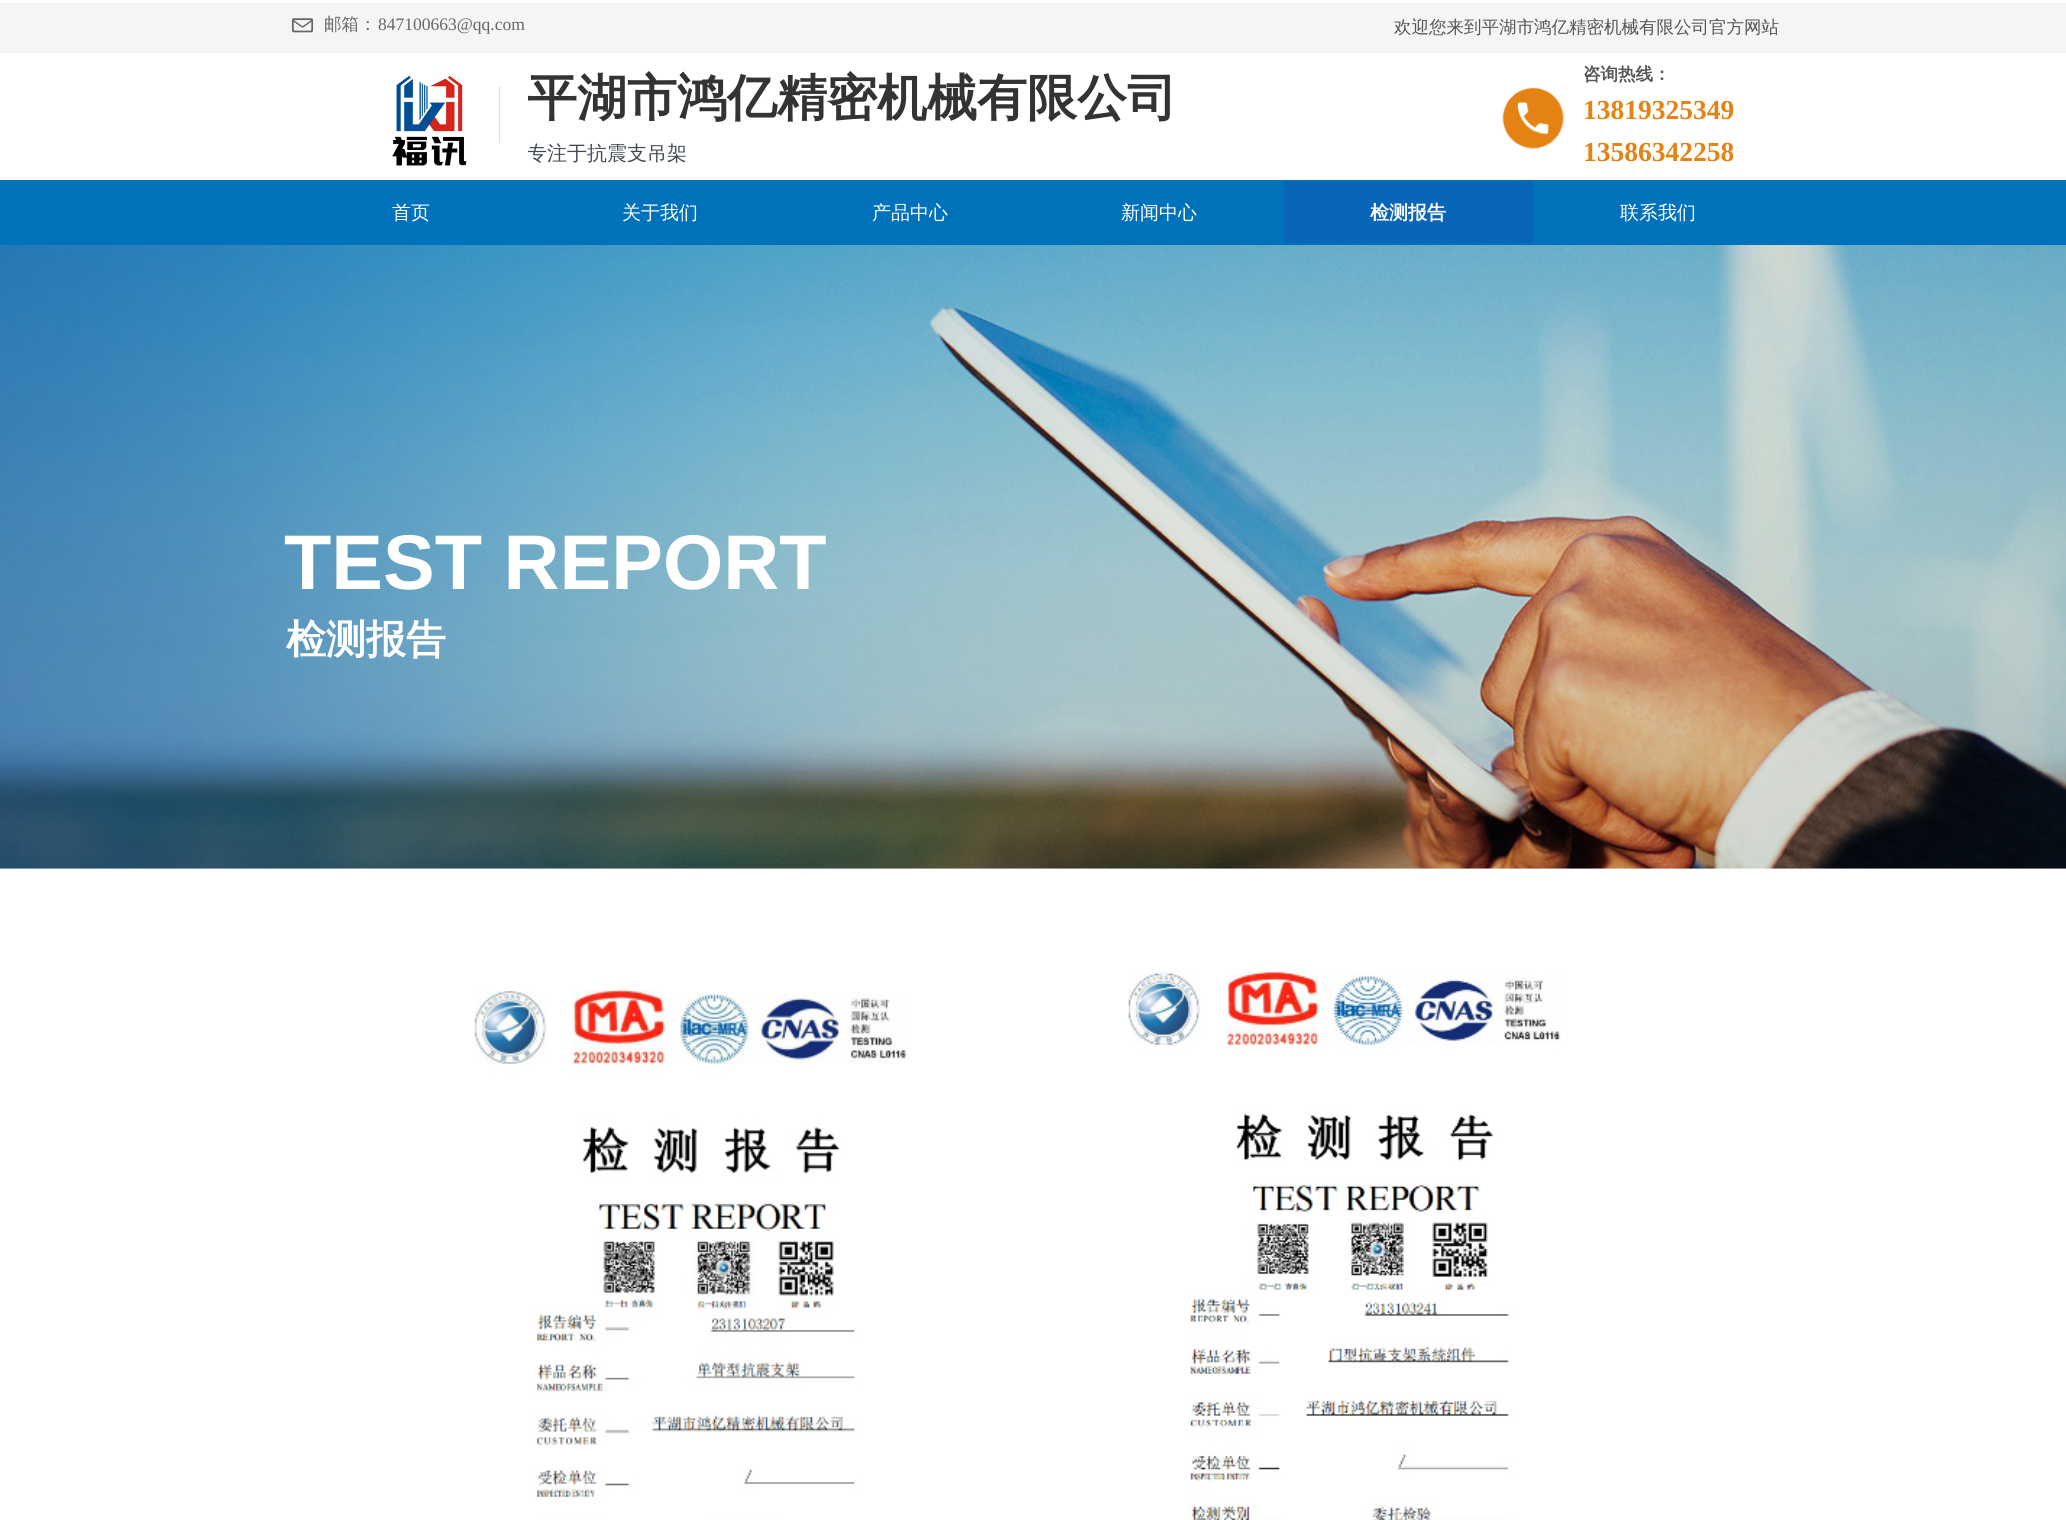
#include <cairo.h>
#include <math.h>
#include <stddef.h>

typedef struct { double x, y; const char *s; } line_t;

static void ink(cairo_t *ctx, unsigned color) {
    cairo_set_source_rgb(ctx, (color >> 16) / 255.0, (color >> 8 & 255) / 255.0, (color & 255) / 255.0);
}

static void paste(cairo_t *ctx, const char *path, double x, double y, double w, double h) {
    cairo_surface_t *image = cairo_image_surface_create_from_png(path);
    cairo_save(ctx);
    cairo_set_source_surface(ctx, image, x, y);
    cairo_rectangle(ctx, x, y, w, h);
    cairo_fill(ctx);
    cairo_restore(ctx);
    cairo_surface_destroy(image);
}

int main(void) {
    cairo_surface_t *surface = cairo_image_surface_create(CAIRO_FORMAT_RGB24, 2066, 1520);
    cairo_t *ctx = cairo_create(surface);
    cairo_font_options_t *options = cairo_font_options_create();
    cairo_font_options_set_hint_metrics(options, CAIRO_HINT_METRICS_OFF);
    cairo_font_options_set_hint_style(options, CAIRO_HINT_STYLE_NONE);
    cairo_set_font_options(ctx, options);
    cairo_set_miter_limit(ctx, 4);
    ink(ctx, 0xFFFFFF);
    cairo_paint(ctx);
    ink(ctx, 0xF5F5F5);
    cairo_rectangle(ctx, 0, 3, 2066, 50);
    cairo_fill(ctx);
    paste(ctx, "media/1.png", 291, 18, 23, 15);
    cairo_select_font_face(ctx, "WenQuanYi Zen Hei Medium", CAIRO_FONT_SLANT_NORMAL, CAIRO_FONT_WEIGHT_NORMAL);
    cairo_set_font_size(ctx, 17.5);
    ink(ctx, 0x666666);
    cairo_move_to(ctx, 324, 30);
    cairo_show_text(ctx, "邮箱：");
    cairo_select_font_face(ctx, "Liberation Serif", CAIRO_FONT_SLANT_NORMAL, CAIRO_FONT_WEIGHT_NORMAL);
    cairo_move_to(ctx, 378, 30);
    cairo_show_text(ctx, "847100663@qq.com");
    cairo_select_font_face(ctx, "WenQuanYi Zen Hei Medium", CAIRO_FONT_SLANT_NORMAL, CAIRO_FONT_WEIGHT_NORMAL);
    ink(ctx, 0x555555);
    cairo_move_to(ctx, 1394, 33);
    cairo_show_text(ctx, "欢迎您来到平湖市鸿亿精密机械有限公司官方网站");
    paste(ctx, "media/2.png", 392, 75, 75, 91);
    ink(ctx, 0xDDDDDD);
    cairo_rectangle(ctx, 499, 86, 1, 57);
    cairo_fill(ctx);
    cairo_save(ctx);
    cairo_rectangle(ctx, 528, 55, 750, 124);
    cairo_clip(ctx);
    cairo_select_font_face(ctx, "WenQuanYi Zen Hei", CAIRO_FONT_SLANT_NORMAL, CAIRO_FONT_WEIGHT_BOLD);
    cairo_set_font_size(ctx, 50);
    ink(ctx, 0x333333);
    cairo_move_to(ctx, 527, 115);
    cairo_show_text(ctx, "平湖市鸿亿精密机械有限公司");
    cairo_select_font_face(ctx, "WenQuanYi Zen Hei Medium", CAIRO_FONT_SLANT_NORMAL, CAIRO_FONT_WEIGHT_NORMAL);
    cairo_set_font_size(ctx, 20);
    ink(ctx, 0x434A54);
    cairo_move_to(ctx, 527, 160);
    cairo_show_text(ctx, "专注于抗震支吊架");
    cairo_restore(ctx);
    paste(ctx, "media/3.png", 1502, 87, 62, 62);
    cairo_select_font_face(ctx, "WenQuanYi Zen Hei", CAIRO_FONT_SLANT_NORMAL, CAIRO_FONT_WEIGHT_BOLD);
    ink(ctx, 0x555555);
    cairo_move_to(ctx, 1583, 80);
    cairo_show_text(ctx, "咨询热线：");
    cairo_select_font_face(ctx, "Liberation Serif", CAIRO_FONT_SLANT_NORMAL, CAIRO_FONT_WEIGHT_BOLD);
    cairo_set_font_size(ctx, 27.5);
    ink(ctx, 0xE48313);
    cairo_move_to(ctx, 1583, 119);
    cairo_show_text(ctx, "13819325349");
    cairo_move_to(ctx, 1583, 161);
    cairo_show_text(ctx, "13586342258");
    ink(ctx, 0x0072BB);
    cairo_rectangle(ctx, 0, 180, 2066, 65);
    cairo_fill(ctx);
    cairo_select_font_face(ctx, "WenQuanYi Zen Hei Medium", CAIRO_FONT_SLANT_NORMAL, CAIRO_FONT_WEIGHT_NORMAL);
    cairo_set_font_size(ctx, 19);
    ink(ctx, 0xFFFFFF);
    {
        static const line_t items[] = {
            {392, 219, "首页"},
            {622, 219, "关于我们"},
            {872, 219, "产品中心"},
            {1121, 219, "新闻中心"},
        };
        for (size_t i = 0; i < sizeof items / sizeof *items; i++) {
            cairo_move_to(ctx, items[i].x, items[i].y);
            cairo_show_text(ctx, items[i].s);
        }
    }
    ink(ctx, 0x0965B7);
    cairo_rectangle(ctx, 1284, 181, 249, 62);
    cairo_fill(ctx);
    cairo_select_font_face(ctx, "WenQuanYi Zen Hei", CAIRO_FONT_SLANT_NORMAL, CAIRO_FONT_WEIGHT_BOLD);
    ink(ctx, 0xFFFFFF);
    cairo_move_to(ctx, 1370, 219);
    cairo_show_text(ctx, "检测报告");
    cairo_select_font_face(ctx, "WenQuanYi Zen Hei Medium", CAIRO_FONT_SLANT_NORMAL, CAIRO_FONT_WEIGHT_NORMAL);
    cairo_move_to(ctx, 1620, 219);
    cairo_show_text(ctx, "联系我们");
    paste(ctx, "media/4.png", 0, 245, 2066, 624);
    cairo_select_font_face(ctx, "Liberation Sans", CAIRO_FONT_SLANT_NORMAL, CAIRO_FONT_WEIGHT_BOLD);
    cairo_set_font_size(ctx, 77.5);
    cairo_move_to(ctx, 284, 589);
    cairo_show_text(ctx, "TEST REPORT");
    cairo_select_font_face(ctx, "WenQuanYi Zen Hei", CAIRO_FONT_SLANT_NORMAL, CAIRO_FONT_WEIGHT_BOLD);
    cairo_set_font_size(ctx, 40);
    cairo_move_to(ctx, 286, 653);
    cairo_show_text(ctx, "检测报告");
    paste(ctx, "media/5.png", 474, 989, 433, 531);
    paste(ctx, "media/6.png", 1128, 971, 433, 549);
    cairo_surface_write_to_png(surface, "image.png");
    cairo_font_options_destroy(options);
    cairo_destroy(ctx);
    cairo_surface_destroy(surface);
    return 0;
}
